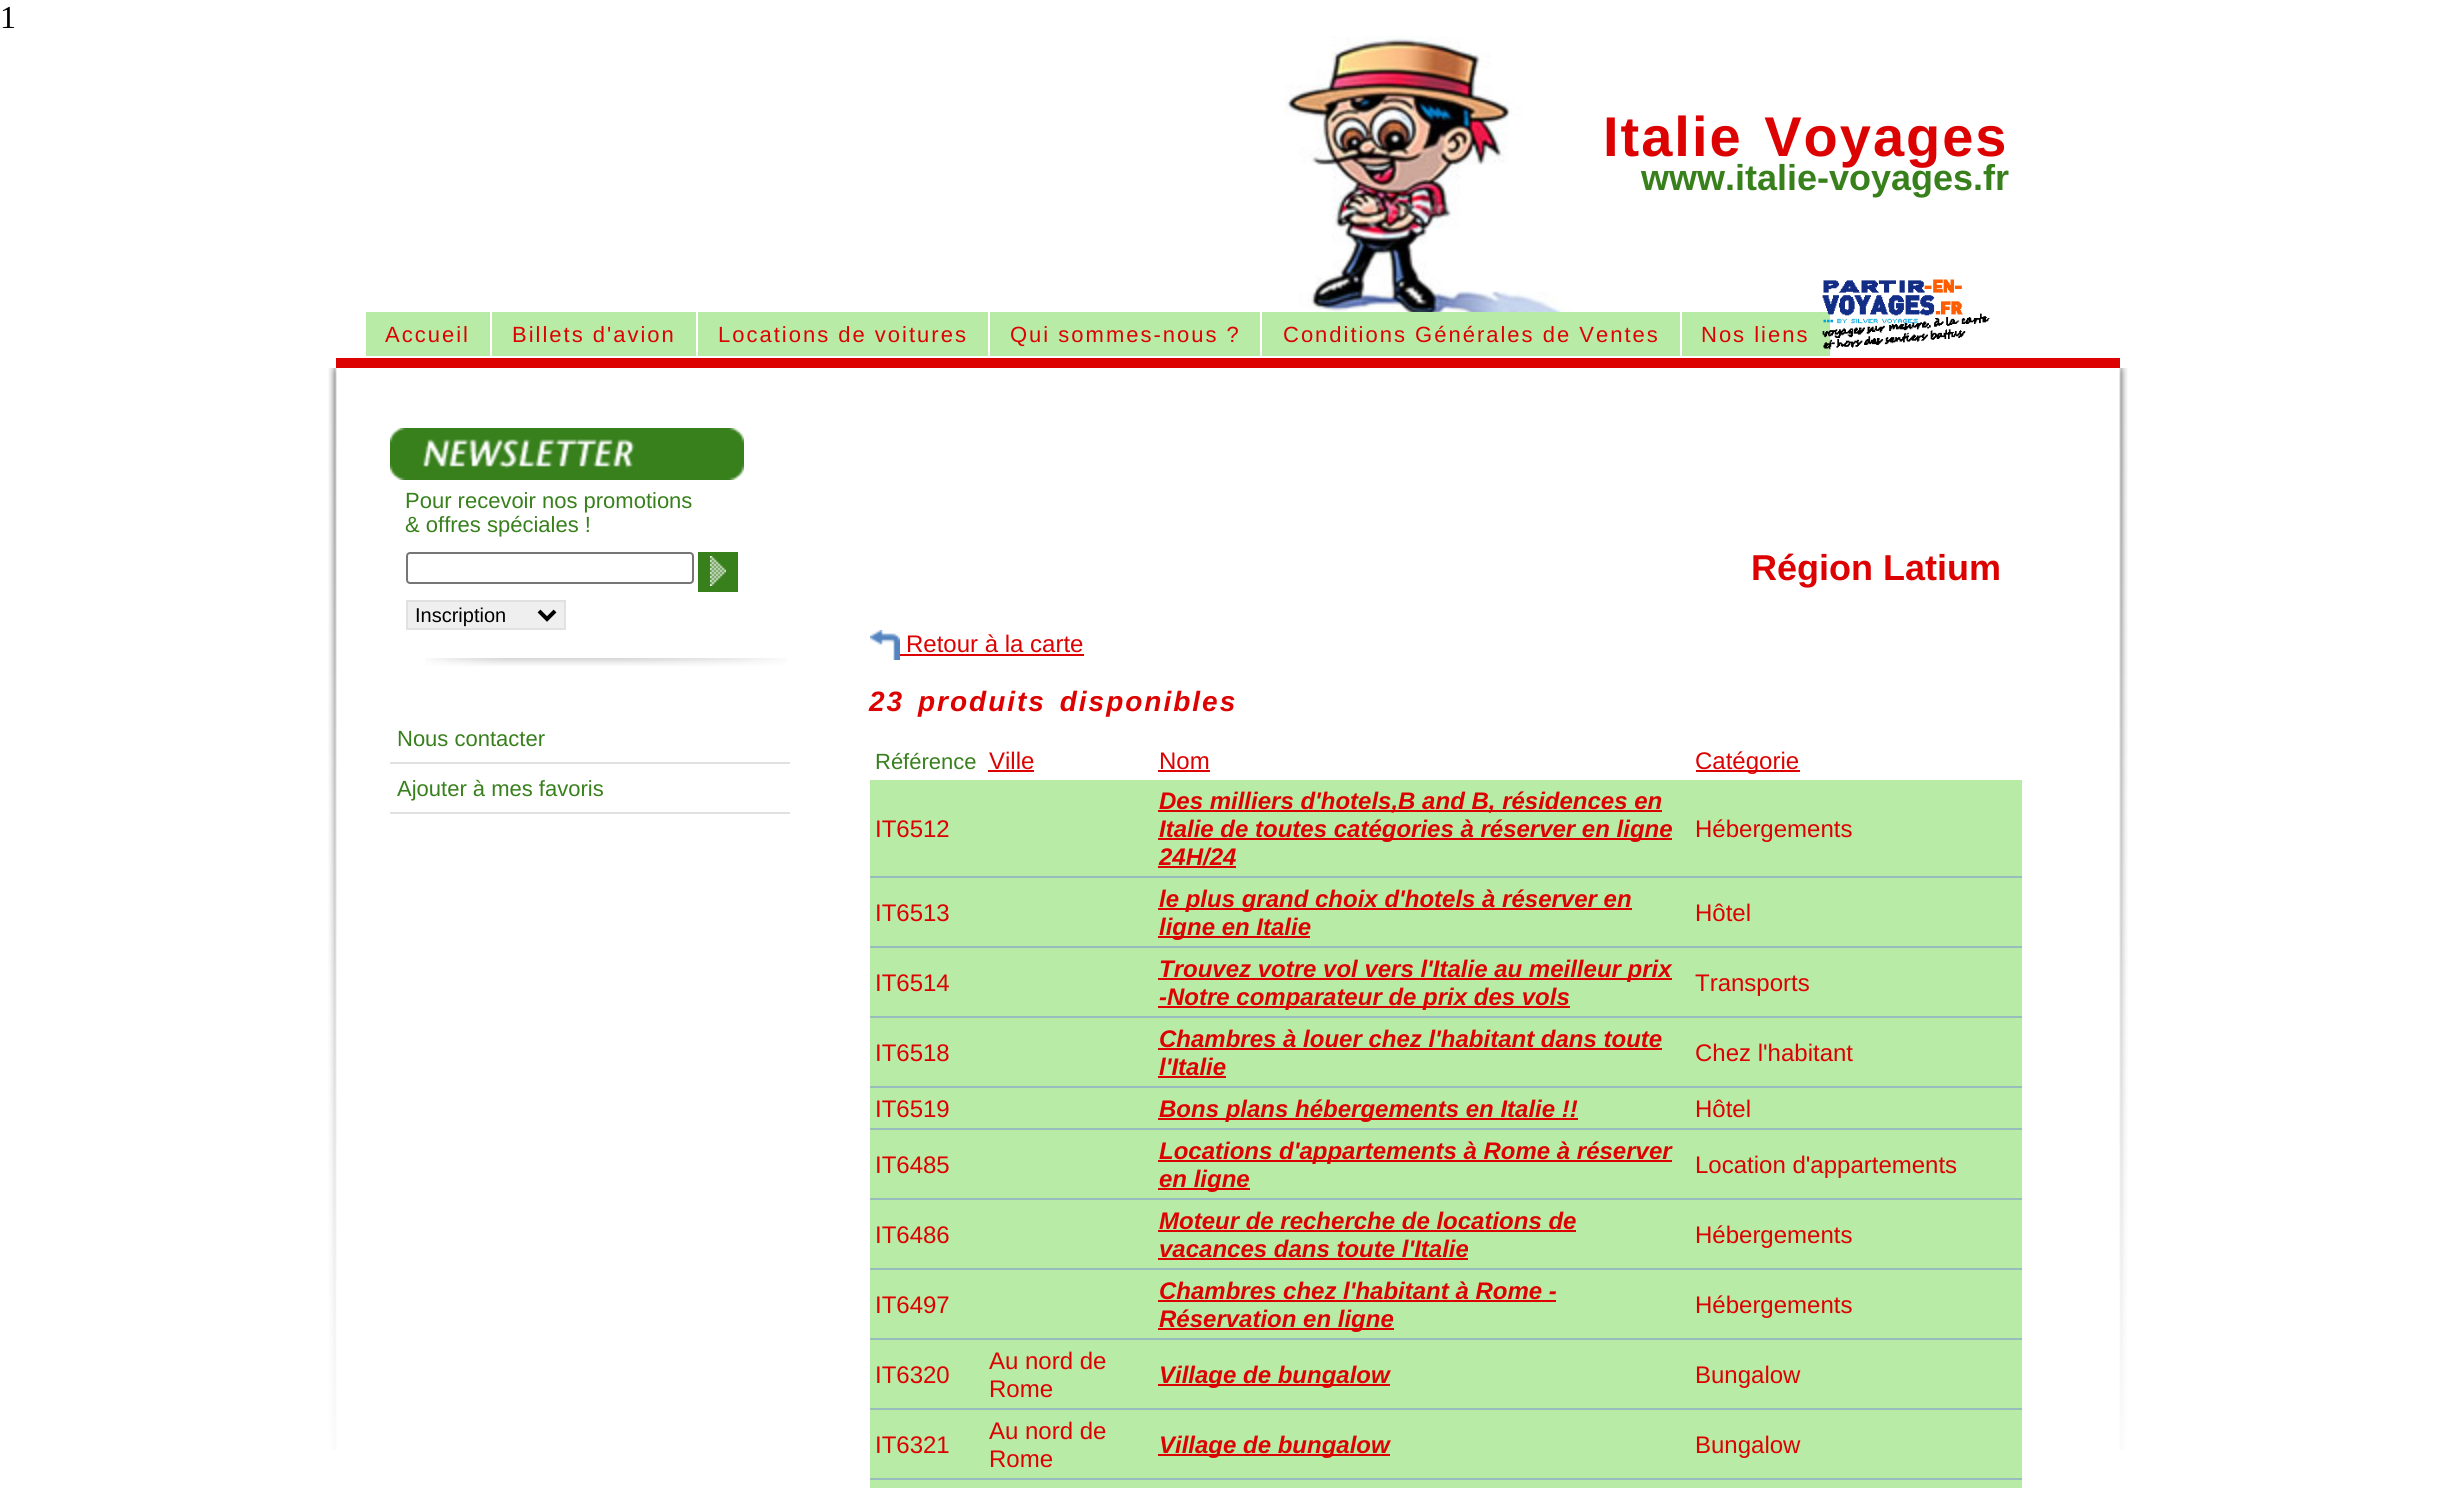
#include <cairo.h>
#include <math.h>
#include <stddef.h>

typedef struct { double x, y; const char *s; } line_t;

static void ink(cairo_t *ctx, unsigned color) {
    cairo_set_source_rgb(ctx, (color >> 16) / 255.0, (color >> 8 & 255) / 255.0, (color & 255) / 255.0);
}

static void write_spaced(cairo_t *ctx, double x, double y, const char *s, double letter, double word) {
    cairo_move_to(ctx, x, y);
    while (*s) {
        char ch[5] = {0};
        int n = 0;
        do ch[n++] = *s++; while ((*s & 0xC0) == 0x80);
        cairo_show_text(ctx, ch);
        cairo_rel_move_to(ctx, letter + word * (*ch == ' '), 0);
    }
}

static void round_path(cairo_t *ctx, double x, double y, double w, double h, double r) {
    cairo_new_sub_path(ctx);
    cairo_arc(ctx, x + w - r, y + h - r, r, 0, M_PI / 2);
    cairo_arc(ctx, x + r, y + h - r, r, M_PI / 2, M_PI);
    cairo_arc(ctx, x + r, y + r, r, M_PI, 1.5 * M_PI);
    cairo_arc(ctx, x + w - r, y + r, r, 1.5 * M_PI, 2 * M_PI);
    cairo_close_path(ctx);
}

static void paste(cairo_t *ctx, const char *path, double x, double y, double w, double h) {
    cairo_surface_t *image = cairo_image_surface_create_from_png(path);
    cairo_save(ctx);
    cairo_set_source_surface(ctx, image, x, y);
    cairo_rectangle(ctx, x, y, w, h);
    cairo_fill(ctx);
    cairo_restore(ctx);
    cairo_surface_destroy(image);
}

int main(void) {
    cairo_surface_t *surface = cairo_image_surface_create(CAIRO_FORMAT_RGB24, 2453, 1488);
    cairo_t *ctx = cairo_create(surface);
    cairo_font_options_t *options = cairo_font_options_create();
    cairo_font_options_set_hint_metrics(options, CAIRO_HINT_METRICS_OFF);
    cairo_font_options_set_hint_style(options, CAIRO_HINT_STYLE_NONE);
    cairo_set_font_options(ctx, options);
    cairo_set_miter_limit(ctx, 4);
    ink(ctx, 0xFFFFFF);
    cairo_paint(ctx);
    cairo_select_font_face(ctx, "Liberation Serif", CAIRO_FONT_SLANT_NORMAL, CAIRO_FONT_WEIGHT_NORMAL);
    cairo_set_font_size(ctx, 32);
    ink(ctx, 0x000000);
    cairo_move_to(ctx, 0, 28);
    cairo_show_text(ctx, "1");
    paste(ctx, "media/1.png", 1284, 36, 289, 276);
    cairo_select_font_face(ctx, "Liberation Sans", CAIRO_FONT_SLANT_NORMAL, CAIRO_FONT_WEIGHT_BOLD);
    cairo_set_font_size(ctx, 56);
    ink(ctx, 0xDD0202);
    write_spaced(ctx, 1603, 156, "Italie Voyages", 2, 4);
    cairo_set_font_size(ctx, 36);
    ink(ctx, 0x37801C);
    cairo_move_to(ctx, 1641, 190);
    cairo_show_text(ctx, "www.italie-voyages.fr");
    ink(ctx, 0xB8EBA5);
    cairo_rectangle(ctx, 366, 312, 124, 44);
    cairo_fill(ctx);
    cairo_select_font_face(ctx, "Liberation Sans", CAIRO_FONT_SLANT_NORMAL, CAIRO_FONT_WEIGHT_NORMAL);
    cairo_set_font_size(ctx, 22);
    ink(ctx, 0xDD0202);
    write_spaced(ctx, 385, 342, "Accueil", 2, 0);
    ink(ctx, 0xB8EBA5);
    cairo_rectangle(ctx, 492, 312, 204, 44);
    cairo_fill(ctx);
    ink(ctx, 0xDD0202);
    write_spaced(ctx, 512, 342, "Billets d'avion", 2, 0);
    ink(ctx, 0xB8EBA5);
    cairo_rectangle(ctx, 698, 312, 290, 44);
    cairo_fill(ctx);
    ink(ctx, 0xDD0202);
    write_spaced(ctx, 718, 342, "Locations de voitures", 2, 0);
    ink(ctx, 0xB8EBA5);
    cairo_rectangle(ctx, 990, 312, 270, 44);
    cairo_fill(ctx);
    ink(ctx, 0xDD0202);
    write_spaced(ctx, 1010, 342, "Qui sommes-nous ?", 2, 0);
    ink(ctx, 0xB8EBA5);
    cairo_rectangle(ctx, 1262, 312, 418, 44);
    cairo_fill(ctx);
    ink(ctx, 0xDD0202);
    write_spaced(ctx, 1283, 342, "Conditions Générales de Ventes", 2, 0);
    ink(ctx, 0xB8EBA5);
    cairo_rectangle(ctx, 1682, 312, 148, 44);
    cairo_fill(ctx);
    ink(ctx, 0xDD0202);
    write_spaced(ctx, 1701, 342, "Nos liens", 2, 0);
    paste(ctx, "media/2.png", 1822, 279, 168, 71);
    cairo_rectangle(ctx, 336, 358, 1784, 10);
    cairo_fill(ctx);
    paste(ctx, "media/3.png", 328, 368, 1800, 1082);
    ink(ctx, 0x37801C);
    cairo_rectangle(ctx, 390, 428, 354, 52);
    cairo_fill(ctx);
    paste(ctx, "media/4.png", 390, 428, 354, 52);
    cairo_move_to(ctx, 405, 508);
    cairo_show_text(ctx, "Pour recevoir nos promotions");
    cairo_move_to(ctx, 405, 532);
    cairo_show_text(ctx, "& offres spéciales !");
    round_path(ctx, 407, 553, 286, 30, 3);
    ink(ctx, 0x767676);
    cairo_stroke(ctx);
    ink(ctx, 0x37801C);
    cairo_rectangle(ctx, 698, 552, 40, 40);
    cairo_fill(ctx);
    paste(ctx, "media/5.png", 710, 556, 16, 30);
    ink(ctx, 0xEFEFEF);
    cairo_rectangle(ctx, 407, 601, 158, 28);
    cairo_fill_preserve(ctx);
    ink(ctx, 0xE1E1E1);
    cairo_stroke(ctx);
    cairo_new_path(ctx);
    cairo_move_to(ctx, 539, 611);
    cairo_line_to(ctx, 547, 619);
    cairo_line_to(ctx, 555, 611);
    ink(ctx, 0x000000);
    cairo_set_line_width(ctx, 4);
    cairo_stroke(ctx);
    cairo_set_font_size(ctx, 20);
    cairo_move_to(ctx, 415, 622);
    cairo_show_text(ctx, "Inscription");
    paste(ctx, "media/6.png", 425, 658, 362, 8);
    ink(ctx, 0xE1E1E1);
    cairo_rectangle(ctx, 390, 762, 400, 2);
    cairo_fill(ctx);
    cairo_set_font_size(ctx, 22);
    ink(ctx, 0x37801C);
    cairo_move_to(ctx, 397, 746);
    cairo_show_text(ctx, "Nous contacter");
    ink(ctx, 0xE1E1E1);
    cairo_rectangle(ctx, 390, 812, 400, 2);
    cairo_fill(ctx);
    ink(ctx, 0x37801C);
    cairo_move_to(ctx, 397, 796);
    cairo_show_text(ctx, "Ajouter à mes favoris");
    cairo_select_font_face(ctx, "Liberation Sans", CAIRO_FONT_SLANT_NORMAL, CAIRO_FONT_WEIGHT_BOLD);
    cairo_set_font_size(ctx, 36);
    ink(ctx, 0xDD0202);
    cairo_move_to(ctx, 1751, 580);
    cairo_show_text(ctx, "Région Latium");
    paste(ctx, "media/7.png", 870, 630, 30, 30);
    cairo_select_font_face(ctx, "Liberation Sans", CAIRO_FONT_SLANT_NORMAL, CAIRO_FONT_WEIGHT_NORMAL);
    cairo_set_font_size(ctx, 24);
    cairo_move_to(ctx, 906, 652);
    cairo_show_text(ctx, "Retour à la carte");
    cairo_rectangle(ctx, 900, 654, 184, 2);
    cairo_fill(ctx);
    cairo_select_font_face(ctx, "Liberation Sans", CAIRO_FONT_SLANT_ITALIC, CAIRO_FONT_WEIGHT_BOLD);
    cairo_set_font_size(ctx, 28);
    write_spaced(ctx, 869, 711, "23 produits disponibles", 2, 4);
    cairo_select_font_face(ctx, "Liberation Sans", CAIRO_FONT_SLANT_NORMAL, CAIRO_FONT_WEIGHT_NORMAL);
    cairo_set_font_size(ctx, 22);
    ink(ctx, 0x37801C);
    cairo_move_to(ctx, 875, 769);
    cairo_show_text(ctx, "Référence");
    cairo_set_font_size(ctx, 24);
    ink(ctx, 0xDD0202);
    cairo_move_to(ctx, 989, 769);
    cairo_show_text(ctx, "Ville");
    cairo_rectangle(ctx, 988, 770, 46, 2);
    cairo_fill(ctx);
    cairo_move_to(ctx, 1159, 769);
    cairo_show_text(ctx, "Nom");
    cairo_rectangle(ctx, 1158, 770, 52, 2);
    cairo_fill(ctx);
    cairo_rectangle(ctx, 1696, 770, 104, 2);
    cairo_fill(ctx);
    cairo_move_to(ctx, 1695, 769);
    cairo_show_text(ctx, "Catégorie");
    ink(ctx, 0xB8EBA5);
    cairo_rectangle(ctx, 870, 780, 1152, 96);
    cairo_fill(ctx);
    ink(ctx, 0x98BBBB);
    cairo_rectangle(ctx, 870, 876, 1152, 2);
    cairo_fill(ctx);
    ink(ctx, 0xDD0202);
    cairo_move_to(ctx, 875, 837);
    cairo_show_text(ctx, "IT6512");
    cairo_rectangle(ctx, 1158, 810, 504, 2);
    cairo_fill(ctx);
    cairo_select_font_face(ctx, "Liberation Sans", CAIRO_FONT_SLANT_ITALIC, CAIRO_FONT_WEIGHT_BOLD);
    cairo_move_to(ctx, 1159, 809);
    cairo_show_text(ctx, "Des milliers d'hotels,B and B, résidences en");
    cairo_rectangle(ctx, 1158, 838, 514, 2);
    cairo_fill(ctx);
    cairo_move_to(ctx, 1159, 837);
    cairo_show_text(ctx, "Italie de toutes catégories à réserver en ligne");
    cairo_move_to(ctx, 1159, 865);
    cairo_show_text(ctx, "24H/24");
    cairo_rectangle(ctx, 1158, 866, 78, 2);
    cairo_fill(ctx);
    cairo_select_font_face(ctx, "Liberation Sans", CAIRO_FONT_SLANT_NORMAL, CAIRO_FONT_WEIGHT_NORMAL);
    cairo_move_to(ctx, 1695, 837);
    cairo_show_text(ctx, "Hébergements");
    ink(ctx, 0xB8EBA5);
    cairo_rectangle(ctx, 870, 878, 1152, 68);
    cairo_fill(ctx);
    ink(ctx, 0x98BBBB);
    cairo_rectangle(ctx, 870, 946, 1152, 2);
    cairo_fill(ctx);
    ink(ctx, 0xDD0202);
    cairo_move_to(ctx, 875, 921);
    cairo_show_text(ctx, "IT6513");
    cairo_rectangle(ctx, 1158, 908, 474, 2);
    cairo_fill(ctx);
    cairo_select_font_face(ctx, "Liberation Sans", CAIRO_FONT_SLANT_ITALIC, CAIRO_FONT_WEIGHT_BOLD);
    cairo_move_to(ctx, 1159, 907);
    cairo_show_text(ctx, "le plus grand choix d'hotels à réserver en");
    cairo_rectangle(ctx, 1158, 936, 152, 2);
    cairo_fill(ctx);
    cairo_move_to(ctx, 1159, 935);
    cairo_show_text(ctx, "ligne en Italie");
    cairo_select_font_face(ctx, "Liberation Sans", CAIRO_FONT_SLANT_NORMAL, CAIRO_FONT_WEIGHT_NORMAL);
    cairo_move_to(ctx, 1695, 921);
    cairo_show_text(ctx, "Hôtel");
    ink(ctx, 0xB8EBA5);
    cairo_rectangle(ctx, 870, 948, 1152, 68);
    cairo_fill(ctx);
    ink(ctx, 0x98BBBB);
    cairo_rectangle(ctx, 870, 1016, 1152, 2);
    cairo_fill(ctx);
    ink(ctx, 0xDD0202);
    cairo_move_to(ctx, 875, 991);
    cairo_show_text(ctx, "IT6514");
    cairo_rectangle(ctx, 1158, 978, 514, 2);
    cairo_fill(ctx);
    cairo_select_font_face(ctx, "Liberation Sans", CAIRO_FONT_SLANT_ITALIC, CAIRO_FONT_WEIGHT_BOLD);
    cairo_move_to(ctx, 1159, 977);
    cairo_show_text(ctx, "Trouvez votre vol vers l'Italie au meilleur prix");
    cairo_rectangle(ctx, 1158, 1006, 412, 2);
    cairo_fill(ctx);
    cairo_move_to(ctx, 1159, 1005);
    cairo_show_text(ctx, "-Notre comparateur de prix des vols");
    cairo_select_font_face(ctx, "Liberation Sans", CAIRO_FONT_SLANT_NORMAL, CAIRO_FONT_WEIGHT_NORMAL);
    cairo_move_to(ctx, 1695, 991);
    cairo_show_text(ctx, "Transports");
    ink(ctx, 0xB8EBA5);
    cairo_rectangle(ctx, 870, 1018, 1152, 68);
    cairo_fill(ctx);
    ink(ctx, 0x98BBBB);
    cairo_rectangle(ctx, 870, 1086, 1152, 2);
    cairo_fill(ctx);
    ink(ctx, 0xDD0202);
    cairo_move_to(ctx, 875, 1061);
    cairo_show_text(ctx, "IT6518");
    cairo_select_font_face(ctx, "Liberation Sans", CAIRO_FONT_SLANT_ITALIC, CAIRO_FONT_WEIGHT_BOLD);
    cairo_move_to(ctx, 1159, 1047);
    cairo_show_text(ctx, "Chambres à louer chez l'habitant dans toute");
    cairo_rectangle(ctx, 1158, 1048, 504, 2);
    cairo_fill(ctx);
    cairo_move_to(ctx, 1159, 1075);
    cairo_show_text(ctx, "l'Italie");
    cairo_rectangle(ctx, 1158, 1076, 68, 2);
    cairo_fill(ctx);
    cairo_select_font_face(ctx, "Liberation Sans", CAIRO_FONT_SLANT_NORMAL, CAIRO_FONT_WEIGHT_NORMAL);
    cairo_move_to(ctx, 1695, 1061);
    cairo_show_text(ctx, "Chez l'habitant");
    ink(ctx, 0xB8EBA5);
    cairo_rectangle(ctx, 870, 1088, 1152, 40);
    cairo_fill(ctx);
    ink(ctx, 0x98BBBB);
    cairo_rectangle(ctx, 870, 1128, 1152, 2);
    cairo_fill(ctx);
    ink(ctx, 0xDD0202);
    cairo_move_to(ctx, 875, 1117);
    cairo_show_text(ctx, "IT6519");
    cairo_rectangle(ctx, 1158, 1118, 420, 2);
    cairo_fill(ctx);
    cairo_select_font_face(ctx, "Liberation Sans", CAIRO_FONT_SLANT_ITALIC, CAIRO_FONT_WEIGHT_BOLD);
    cairo_move_to(ctx, 1159, 1117);
    cairo_show_text(ctx, "Bons plans hébergements en Italie !!");
    cairo_select_font_face(ctx, "Liberation Sans", CAIRO_FONT_SLANT_NORMAL, CAIRO_FONT_WEIGHT_NORMAL);
    cairo_move_to(ctx, 1695, 1117);
    cairo_show_text(ctx, "Hôtel");
    ink(ctx, 0xB8EBA5);
    cairo_rectangle(ctx, 870, 1130, 1152, 68);
    cairo_fill(ctx);
    ink(ctx, 0x98BBBB);
    cairo_rectangle(ctx, 870, 1198, 1152, 2);
    cairo_fill(ctx);
    ink(ctx, 0xDD0202);
    cairo_move_to(ctx, 875, 1173);
    cairo_show_text(ctx, "IT6485");
    cairo_rectangle(ctx, 1158, 1160, 514, 2);
    cairo_fill(ctx);
    cairo_select_font_face(ctx, "Liberation Sans", CAIRO_FONT_SLANT_ITALIC, CAIRO_FONT_WEIGHT_BOLD);
    cairo_move_to(ctx, 1159, 1159);
    cairo_show_text(ctx, "Locations d'appartements à Rome à réserver");
    cairo_rectangle(ctx, 1158, 1188, 92, 2);
    cairo_fill(ctx);
    cairo_move_to(ctx, 1159, 1187);
    cairo_show_text(ctx, "en ligne");
    cairo_select_font_face(ctx, "Liberation Sans", CAIRO_FONT_SLANT_NORMAL, CAIRO_FONT_WEIGHT_NORMAL);
    cairo_move_to(ctx, 1695, 1173);
    cairo_show_text(ctx, "Location d'appartements");
    ink(ctx, 0xB8EBA5);
    cairo_rectangle(ctx, 870, 1200, 1152, 68);
    cairo_fill(ctx);
    ink(ctx, 0x98BBBB);
    cairo_rectangle(ctx, 870, 1268, 1152, 2);
    cairo_fill(ctx);
    ink(ctx, 0xDD0202);
    cairo_move_to(ctx, 875, 1243);
    cairo_show_text(ctx, "IT6486");
    cairo_select_font_face(ctx, "Liberation Sans", CAIRO_FONT_SLANT_ITALIC, CAIRO_FONT_WEIGHT_BOLD);
    cairo_move_to(ctx, 1159, 1229);
    cairo_show_text(ctx, "Moteur de recherche de locations de");
    cairo_rectangle(ctx, 1158, 1230, 418, 2);
    cairo_fill(ctx);
    cairo_move_to(ctx, 1159, 1257);
    cairo_show_text(ctx, "vacances dans toute l'Italie");
    cairo_rectangle(ctx, 1158, 1258, 310, 2);
    cairo_fill(ctx);
    cairo_select_font_face(ctx, "Liberation Sans", CAIRO_FONT_SLANT_NORMAL, CAIRO_FONT_WEIGHT_NORMAL);
    cairo_move_to(ctx, 1695, 1243);
    cairo_show_text(ctx, "Hébergements");
    ink(ctx, 0xB8EBA5);
    cairo_rectangle(ctx, 870, 1270, 1152, 68);
    cairo_fill(ctx);
    ink(ctx, 0x98BBBB);
    cairo_rectangle(ctx, 870, 1338, 1152, 2);
    cairo_fill(ctx);
    ink(ctx, 0xDD0202);
    cairo_move_to(ctx, 875, 1313);
    cairo_show_text(ctx, "IT6497");
    cairo_select_font_face(ctx, "Liberation Sans", CAIRO_FONT_SLANT_ITALIC, CAIRO_FONT_WEIGHT_BOLD);
    cairo_move_to(ctx, 1159, 1299);
    cairo_show_text(ctx, "Chambres chez l'habitant à Rome -");
    cairo_rectangle(ctx, 1158, 1300, 398, 2);
    cairo_fill(ctx);
    cairo_rectangle(ctx, 1158, 1328, 236, 2);
    cairo_fill(ctx);
    cairo_move_to(ctx, 1159, 1327);
    cairo_show_text(ctx, "Réservation en ligne");
    cairo_select_font_face(ctx, "Liberation Sans", CAIRO_FONT_SLANT_NORMAL, CAIRO_FONT_WEIGHT_NORMAL);
    cairo_move_to(ctx, 1695, 1313);
    cairo_show_text(ctx, "Hébergements");
    ink(ctx, 0xB8EBA5);
    cairo_rectangle(ctx, 870, 1340, 1152, 68);
    cairo_fill(ctx);
    ink(ctx, 0x98BBBB);
    cairo_rectangle(ctx, 870, 1408, 1152, 2);
    cairo_fill(ctx);
    ink(ctx, 0xDD0202);
    {
        static const line_t items[] = {
            {875, 1383, "IT6320"},
            {989, 1369, "Au nord de"},
            {989, 1397, "Rome"},
        };
        for (size_t i = 0; i < sizeof items / sizeof *items; i++) {
            cairo_move_to(ctx, items[i].x, items[i].y);
            cairo_show_text(ctx, items[i].s);
        }
    }
    cairo_rectangle(ctx, 1158, 1384, 232, 2);
    cairo_fill(ctx);
    cairo_select_font_face(ctx, "Liberation Sans", CAIRO_FONT_SLANT_ITALIC, CAIRO_FONT_WEIGHT_BOLD);
    cairo_move_to(ctx, 1159, 1383);
    cairo_show_text(ctx, "Village de bungalow");
    cairo_select_font_face(ctx, "Liberation Sans", CAIRO_FONT_SLANT_NORMAL, CAIRO_FONT_WEIGHT_NORMAL);
    cairo_move_to(ctx, 1695, 1383);
    cairo_show_text(ctx, "Bungalow");
    ink(ctx, 0xB8EBA5);
    cairo_rectangle(ctx, 870, 1410, 1152, 68);
    cairo_fill(ctx);
    ink(ctx, 0x98BBBB);
    cairo_rectangle(ctx, 870, 1478, 1152, 2);
    cairo_fill(ctx);
    ink(ctx, 0xDD0202);
    {
        static const line_t items[] = {
            {875, 1453, "IT6321"},
            {989, 1439, "Au nord de"},
            {989, 1467, "Rome"},
        };
        for (size_t i = 0; i < sizeof items / sizeof *items; i++) {
            cairo_move_to(ctx, items[i].x, items[i].y);
            cairo_show_text(ctx, items[i].s);
        }
    }
    cairo_rectangle(ctx, 1158, 1454, 232, 2);
    cairo_fill(ctx);
    cairo_select_font_face(ctx, "Liberation Sans", CAIRO_FONT_SLANT_ITALIC, CAIRO_FONT_WEIGHT_BOLD);
    cairo_move_to(ctx, 1159, 1453);
    cairo_show_text(ctx, "Village de bungalow");
    cairo_select_font_face(ctx, "Liberation Sans", CAIRO_FONT_SLANT_NORMAL, CAIRO_FONT_WEIGHT_NORMAL);
    cairo_move_to(ctx, 1695, 1453);
    cairo_show_text(ctx, "Bungalow");
    ink(ctx, 0xB8EBA5);
    cairo_rectangle(ctx, 870, 1480, 1152, 8);
    cairo_fill(ctx);
    cairo_surface_write_to_png(surface, "image.png");
    cairo_font_options_destroy(options);
    cairo_destroy(ctx);
    cairo_surface_destroy(surface);
    return 0;
}
